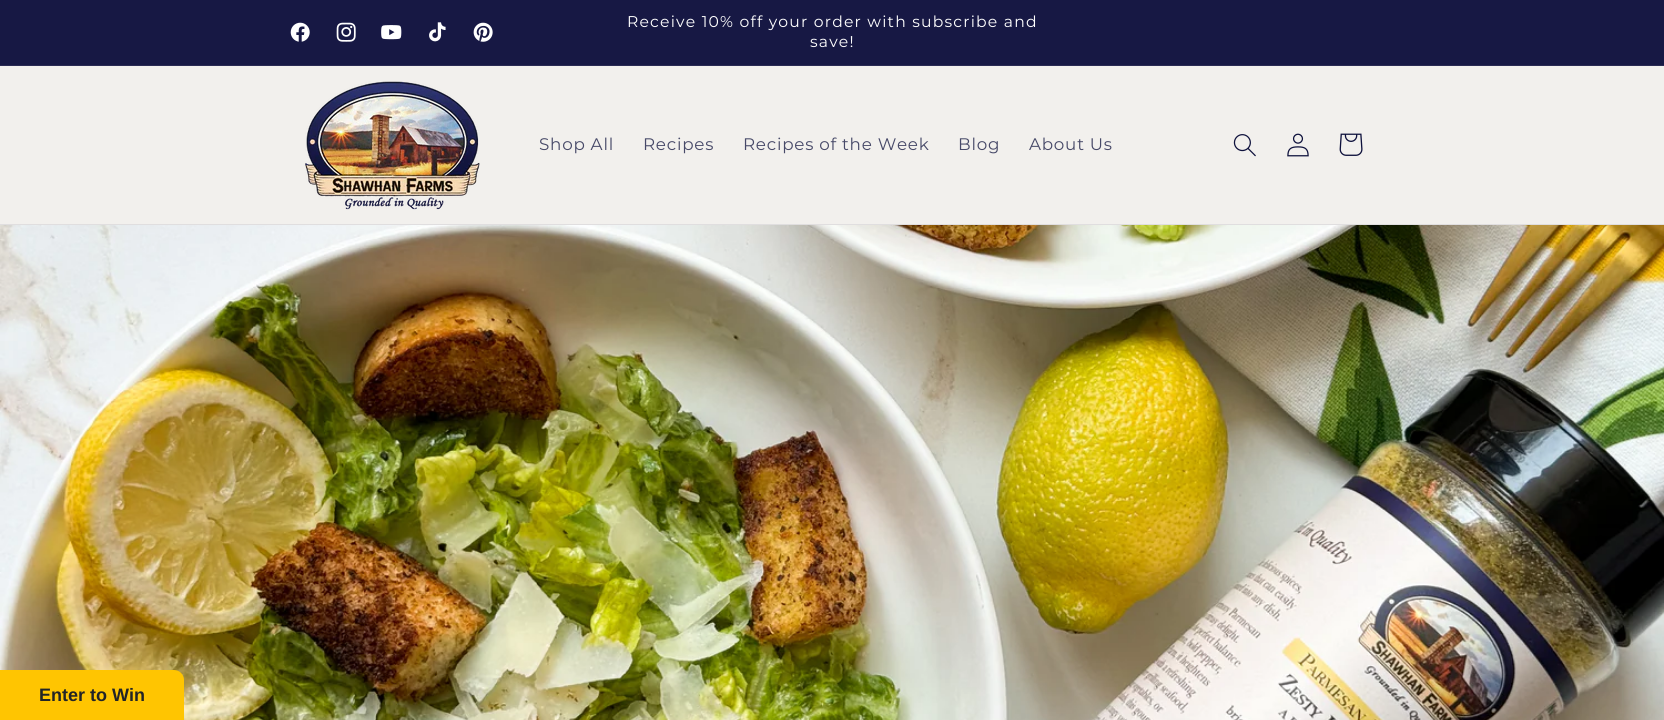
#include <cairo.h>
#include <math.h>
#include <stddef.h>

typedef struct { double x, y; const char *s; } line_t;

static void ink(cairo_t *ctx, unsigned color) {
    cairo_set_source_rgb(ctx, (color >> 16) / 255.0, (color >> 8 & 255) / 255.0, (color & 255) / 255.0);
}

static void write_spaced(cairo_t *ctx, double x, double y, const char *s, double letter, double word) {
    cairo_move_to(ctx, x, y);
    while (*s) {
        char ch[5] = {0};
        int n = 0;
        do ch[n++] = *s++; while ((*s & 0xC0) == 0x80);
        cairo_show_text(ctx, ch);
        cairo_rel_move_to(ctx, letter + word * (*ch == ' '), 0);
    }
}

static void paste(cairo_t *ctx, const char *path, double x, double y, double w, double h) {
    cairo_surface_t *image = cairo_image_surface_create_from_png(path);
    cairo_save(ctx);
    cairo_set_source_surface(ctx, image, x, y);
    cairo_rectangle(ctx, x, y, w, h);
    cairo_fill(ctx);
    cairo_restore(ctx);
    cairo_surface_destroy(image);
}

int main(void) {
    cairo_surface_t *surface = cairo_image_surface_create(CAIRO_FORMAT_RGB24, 1664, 720);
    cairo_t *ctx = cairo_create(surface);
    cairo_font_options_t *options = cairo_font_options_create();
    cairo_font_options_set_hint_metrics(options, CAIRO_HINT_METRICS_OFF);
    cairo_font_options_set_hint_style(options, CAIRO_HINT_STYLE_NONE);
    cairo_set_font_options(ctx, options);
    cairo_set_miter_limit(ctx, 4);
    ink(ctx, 0xF2F0ED);
    cairo_paint(ctx);
    ink(ctx, 0x171844);
    cairo_rectangle(ctx, 0, 0, 1664, 65);
    cairo_fill(ctx);
    ink(ctx, 0x2A2A53);
    cairo_rectangle(ctx, 0, 65, 1664, 1);
    cairo_fill(ctx);
    paste(ctx, "media/1.png", 290, 22, 20, 20);
    paste(ctx, "media/2.png", 336, 22, 20, 20);
    paste(ctx, "media/3.png", 381, 25, 21, 15);
    paste(ctx, "media/4.png", 429, 22, 17, 20);
    paste(ctx, "media/5.png", 473, 22, 20, 20);
    cairo_select_font_face(ctx, "Montserrat", CAIRO_FONT_SLANT_NORMAL, CAIRO_FONT_WEIGHT_NORMAL);
    cairo_set_font_size(ctx, 15.6);
    ink(ctx, 0xFFFFFF);
    write_spaced(ctx, 627, 27, "Receive 10% off your order with subscribe and", 1.2, 0);
    write_spaced(ctx, 810, 47, "save!", 1.2, 0);
    ink(ctx, 0xE0DEDF);
    cairo_rectangle(ctx, 0, 224, 1664, 1);
    cairo_fill(ctx);
    paste(ctx, "media/6.png", 305, 81, 175, 129);
    cairo_set_font_size(ctx, 16.75);
    ink(ctx, 0x474968);
    {
        static const line_t items[] = {
            {539, 150, "Shop All"},
            {643, 150, "Recipes"},
            {743, 150, "Recipes of the Week"},
            {958, 150, "Blog"},
            {1029, 150, "About Us"},
        };
        for (size_t i = 0; i < sizeof items / sizeof *items; i++) {
            write_spaced(ctx, items[i].x, items[i].y, items[i].s, 0.75, 0);
        }
    }
    paste(ctx, "media/7.png", 1233, 134, 23, 23);
    paste(ctx, "media/8.png", 1287, 133, 22, 24);
    paste(ctx, "media/9.png", 1339, 133, 24, 23);
    paste(ctx, "media/10.png", 0, 225, 1664, 495);
    ink(ctx, 0xFFC501);
    cairo_new_path(ctx);
    cairo_move_to(ctx, 0, 670);
    cairo_line_to(ctx, 174, 670);
    cairo_curve_to(ctx, 179.5, 670, 184, 674.5, 184, 680);
    cairo_line_to(ctx, 184, 720);
    cairo_line_to(ctx, 0, 720);
    cairo_close_path(ctx);
    cairo_fill(ctx);
    cairo_select_font_face(ctx, "Liberation Sans", CAIRO_FONT_SLANT_NORMAL, CAIRO_FONT_WEIGHT_BOLD);
    cairo_set_font_size(ctx, 18);
    ink(ctx, 0x222427);
    cairo_move_to(ctx, 39, 701);
    cairo_show_text(ctx, "Enter to Win");
    cairo_surface_write_to_png(surface, "image.png");
    cairo_font_options_destroy(options);
    cairo_destroy(ctx);
    cairo_surface_destroy(surface);
    return 0;
}
